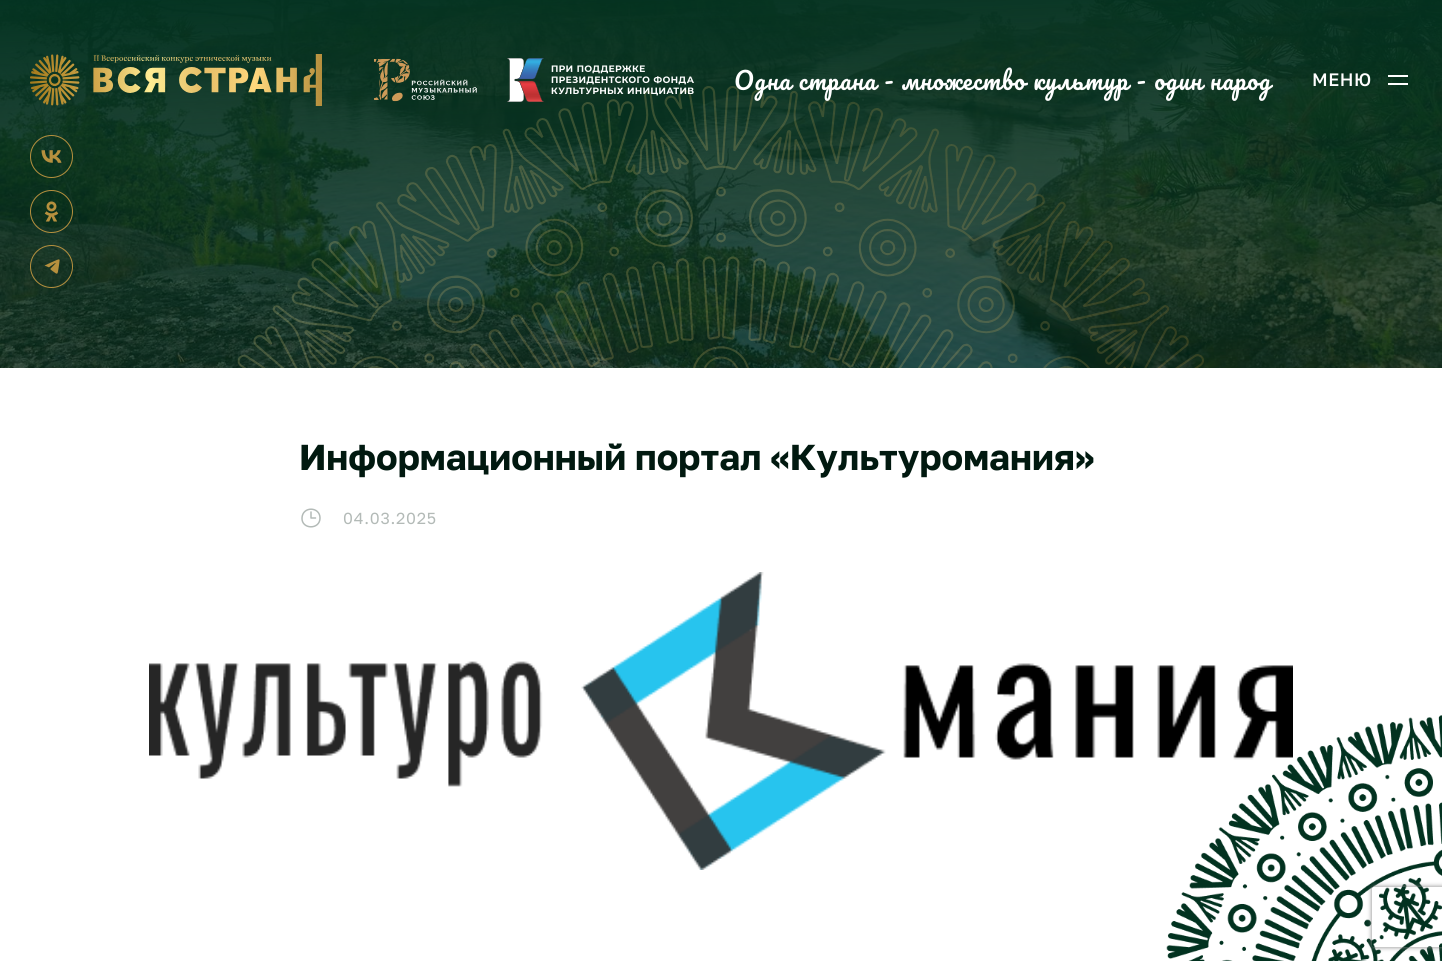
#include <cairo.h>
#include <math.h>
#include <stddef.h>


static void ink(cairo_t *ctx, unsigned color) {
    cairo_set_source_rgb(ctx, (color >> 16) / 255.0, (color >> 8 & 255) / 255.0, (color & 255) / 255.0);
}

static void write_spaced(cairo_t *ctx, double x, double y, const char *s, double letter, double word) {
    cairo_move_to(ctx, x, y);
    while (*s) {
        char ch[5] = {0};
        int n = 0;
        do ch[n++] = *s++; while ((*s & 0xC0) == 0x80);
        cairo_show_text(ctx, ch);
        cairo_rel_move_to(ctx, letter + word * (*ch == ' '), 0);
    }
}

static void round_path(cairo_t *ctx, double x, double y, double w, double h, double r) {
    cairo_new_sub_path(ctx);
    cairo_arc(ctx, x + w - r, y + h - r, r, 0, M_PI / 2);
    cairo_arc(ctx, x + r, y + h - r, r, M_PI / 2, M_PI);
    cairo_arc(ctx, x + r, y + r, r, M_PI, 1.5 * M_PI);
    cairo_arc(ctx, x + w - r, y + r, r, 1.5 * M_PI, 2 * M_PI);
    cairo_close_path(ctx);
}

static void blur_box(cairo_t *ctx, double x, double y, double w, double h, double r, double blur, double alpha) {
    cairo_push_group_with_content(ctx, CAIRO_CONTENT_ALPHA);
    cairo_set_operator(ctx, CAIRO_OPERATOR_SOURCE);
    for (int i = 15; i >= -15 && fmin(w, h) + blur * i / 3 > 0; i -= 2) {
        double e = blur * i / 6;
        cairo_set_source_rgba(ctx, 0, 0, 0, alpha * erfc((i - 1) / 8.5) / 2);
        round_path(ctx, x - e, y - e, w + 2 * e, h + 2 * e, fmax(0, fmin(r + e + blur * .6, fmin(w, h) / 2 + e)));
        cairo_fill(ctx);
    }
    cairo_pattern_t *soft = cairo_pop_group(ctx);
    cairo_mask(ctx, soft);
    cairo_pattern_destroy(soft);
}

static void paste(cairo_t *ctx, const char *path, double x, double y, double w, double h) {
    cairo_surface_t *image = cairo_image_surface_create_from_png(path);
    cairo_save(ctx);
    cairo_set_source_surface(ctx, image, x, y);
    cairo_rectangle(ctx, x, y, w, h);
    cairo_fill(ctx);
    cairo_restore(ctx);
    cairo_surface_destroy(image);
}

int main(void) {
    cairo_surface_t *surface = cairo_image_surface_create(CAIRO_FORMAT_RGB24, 1442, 961);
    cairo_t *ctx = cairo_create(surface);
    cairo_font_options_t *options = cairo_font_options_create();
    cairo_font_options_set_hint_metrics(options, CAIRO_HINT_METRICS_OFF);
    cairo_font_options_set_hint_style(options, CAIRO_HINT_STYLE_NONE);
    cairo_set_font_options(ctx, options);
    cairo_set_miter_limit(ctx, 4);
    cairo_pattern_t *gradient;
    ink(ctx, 0xFFFFFF);
    cairo_paint(ctx);
    ink(ctx, 0x023220);
    cairo_rectangle(ctx, 0, 0, 1442, 368);
    cairo_fill(ctx);
    paste(ctx, "media/1.png", 0, 0, 1442, 368);
    gradient = cairo_pattern_create_linear(714, -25, 728, 393);
    cairo_pattern_add_color_stop_rgba(gradient, 0, 0.008, 0.196, 0.125, 0.97);
    cairo_pattern_add_color_stop_rgba(gradient, 1, 0.008, 0.196, 0.125, 0.2);
    cairo_set_source(ctx, gradient);
    cairo_pattern_destroy(gradient);
    cairo_rectangle(ctx, 0, 0, 1442, 368);
    cairo_fill(ctx);
    cairo_arc(ctx, 51.5, 156.5, 21, 0, 2 * M_PI);
    ink(ctx, 0xB6903E);
    cairo_set_line_width(ctx, 1);
    cairo_stroke(ctx);
    paste(ctx, "media/2.png", 41, 150, 21, 13);
    cairo_arc(ctx, 51.5, 211.5, 21, 0, 2 * M_PI);
    cairo_stroke(ctx);
    paste(ctx, "media/3.png", 44, 201, 15, 21);
    cairo_arc(ctx, 51.5, 266.5, 21, 0, 2 * M_PI);
    cairo_stroke(ctx);
    paste(ctx, "media/4.png", 44, 259, 16, 15);
    paste(ctx, "media/5.png", 237, 86, 967, 282);
    paste(ctx, "media/6.png", 30, 54, 292, 52);
    paste(ctx, "media/7.png", 374, 58, 103, 44);
    paste(ctx, "media/8.png", 507, 58, 187, 44);
    cairo_select_font_face(ctx, "Pacifico", CAIRO_FONT_SLANT_NORMAL, CAIRO_FONT_WEIGHT_NORMAL);
    cairo_set_font_size(ctx, 24);
    ink(ctx, 0xFFFFFF);
    write_spaced(ctx, 734, 90, "Одна страна - множество культур - один народ", 0.95, 0);
    cairo_select_font_face(ctx, "Golos Text Medium", CAIRO_FONT_SLANT_NORMAL, CAIRO_FONT_WEIGHT_NORMAL);
    cairo_set_font_size(ctx, 18);
    write_spaced(ctx, 1312, 86, "МЕНЮ", 0.5, 0);
    cairo_rectangle(ctx, 1388, 75, 20, 2);
    cairo_fill(ctx);
    cairo_rectangle(ctx, 1388, 83, 20, 2);
    cairo_fill(ctx);
    cairo_select_font_face(ctx, "Golos Text", CAIRO_FONT_SLANT_NORMAL, CAIRO_FONT_WEIGHT_BOLD);
    cairo_set_font_size(ctx, 36);
    ink(ctx, 0x011910);
    cairo_move_to(ctx, 299, 470);
    cairo_show_text(ctx, "Информационный портал «Культуромания»");
    cairo_new_path(ctx);
    cairo_move_to(ctx, 311, 512);
    cairo_line_to(ctx, 311, 518);
    cairo_line_to(ctx, 315.5, 518);
    cairo_move_to(ctx, 320, 518);
    cairo_curve_to(ctx, 320, 530, 301.5, 529.5, 302, 518);
    cairo_curve_to(ctx, 302.5, 506, 320, 506.5, 320, 518);
    cairo_close_path(ctx);
    ink(ctx, 0xB3BAB7);
    cairo_set_line_width(ctx, 1.5);
    cairo_set_line_cap(ctx, CAIRO_LINE_CAP_ROUND);
    cairo_set_line_join(ctx, CAIRO_LINE_JOIN_ROUND);
    cairo_stroke(ctx);
    cairo_select_font_face(ctx, "Golos Text", CAIRO_FONT_SLANT_NORMAL, CAIRO_FONT_WEIGHT_NORMAL);
    cairo_set_font_size(ctx, 16);
    write_spaced(ctx, 343, 524, "04.03.2025", 0.75, 0);
    paste(ctx, "media/10.png", 1166, 715, 276, 246);
    paste(ctx, "media/9.png", 149, 572, 1144, 298);
    cairo_save(ctx);
    cairo_set_fill_rule(ctx, CAIRO_FILL_RULE_EVEN_ODD);
    cairo_new_path(ctx);
    cairo_move_to(ctx, 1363, 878);
    cairo_line_to(ctx, 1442, 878);
    cairo_line_to(ctx, 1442, 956);
    cairo_line_to(ctx, 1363, 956);
    cairo_close_path(ctx);
    cairo_move_to(ctx, 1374, 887);
    cairo_line_to(ctx, 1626, 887);
    cairo_curve_to(ctx, 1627, 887, 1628, 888, 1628, 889);
    cairo_line_to(ctx, 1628, 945);
    cairo_curve_to(ctx, 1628, 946, 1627, 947, 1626, 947);
    cairo_line_to(ctx, 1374, 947);
    cairo_curve_to(ctx, 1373, 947, 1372, 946, 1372, 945);
    cairo_line_to(ctx, 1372, 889);
    cairo_curve_to(ctx, 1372, 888, 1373, 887, 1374, 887);
    cairo_close_path(ctx);
    cairo_clip(ctx);
    ink(ctx, 0x808080);
    blur_box(ctx, 1372, 887, 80, 60, 2, 2.5, 1);
    cairo_restore(ctx);
    cairo_surface_write_to_png(surface, "image.png");
    cairo_font_options_destroy(options);
    cairo_destroy(ctx);
    cairo_surface_destroy(surface);
    return 0;
}
